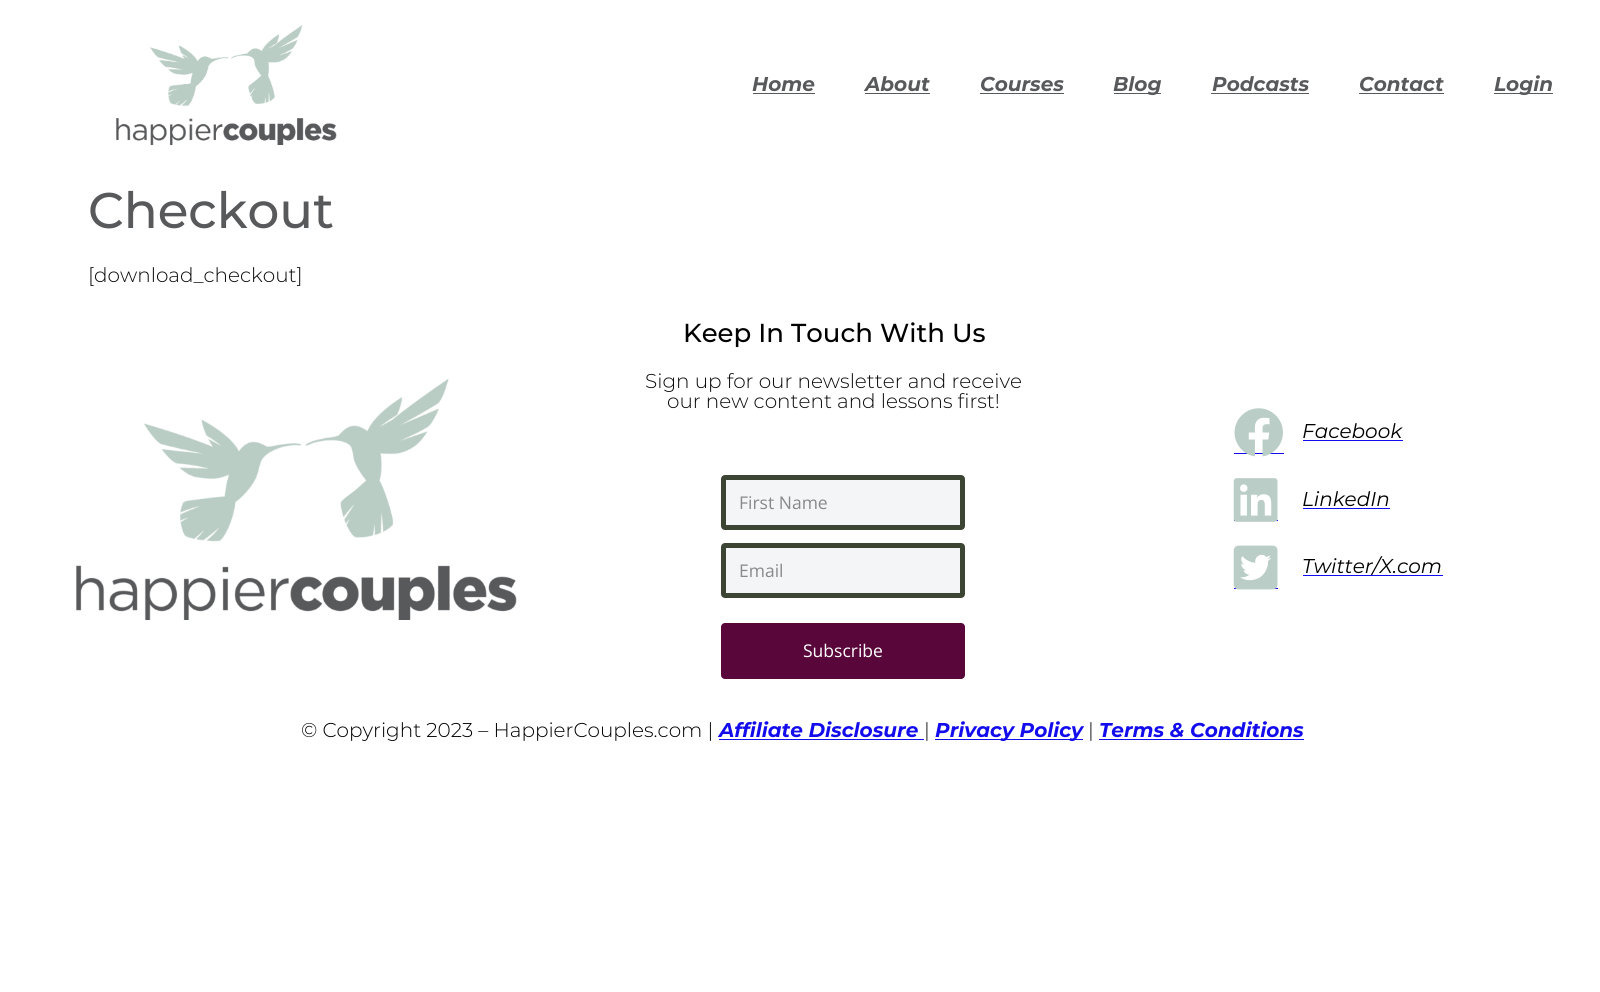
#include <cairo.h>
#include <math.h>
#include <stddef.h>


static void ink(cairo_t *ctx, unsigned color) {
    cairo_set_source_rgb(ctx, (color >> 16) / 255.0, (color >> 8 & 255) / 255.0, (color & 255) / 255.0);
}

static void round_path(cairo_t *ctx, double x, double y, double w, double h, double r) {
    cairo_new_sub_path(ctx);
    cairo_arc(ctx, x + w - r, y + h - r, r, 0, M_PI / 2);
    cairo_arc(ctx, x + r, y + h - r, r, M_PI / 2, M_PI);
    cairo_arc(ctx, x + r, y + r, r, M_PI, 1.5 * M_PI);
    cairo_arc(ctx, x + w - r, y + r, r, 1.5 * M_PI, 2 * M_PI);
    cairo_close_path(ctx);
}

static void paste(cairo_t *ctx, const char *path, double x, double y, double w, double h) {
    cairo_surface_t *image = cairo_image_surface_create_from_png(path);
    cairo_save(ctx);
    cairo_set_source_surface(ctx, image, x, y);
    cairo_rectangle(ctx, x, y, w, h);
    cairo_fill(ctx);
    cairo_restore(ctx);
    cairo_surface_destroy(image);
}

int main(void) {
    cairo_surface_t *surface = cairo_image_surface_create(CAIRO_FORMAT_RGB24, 1600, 992);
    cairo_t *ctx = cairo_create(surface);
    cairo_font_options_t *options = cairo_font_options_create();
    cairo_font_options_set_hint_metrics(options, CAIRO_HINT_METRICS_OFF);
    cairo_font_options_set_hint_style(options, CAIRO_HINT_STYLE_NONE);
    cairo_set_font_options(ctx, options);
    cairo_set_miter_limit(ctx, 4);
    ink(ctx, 0xFFFFFF);
    cairo_paint(ctx);
    paste(ctx, "media/1.png", 116, 25, 221, 120);
    cairo_select_font_face(ctx, "Montserrat", CAIRO_FONT_SLANT_ITALIC, CAIRO_FONT_WEIGHT_BOLD);
    cairo_set_font_size(ctx, 20);
    ink(ctx, 0x58595B);
    cairo_move_to(ctx, 752, 91);
    cairo_show_text(ctx, "Home");
    cairo_rectangle(ctx, 753, 93, 62, 1);
    cairo_fill(ctx);
    cairo_move_to(ctx, 865, 91);
    cairo_show_text(ctx, "About");
    cairo_rectangle(ctx, 865, 93, 65, 1);
    cairo_fill(ctx);
    cairo_move_to(ctx, 980, 91);
    cairo_show_text(ctx, "Courses");
    cairo_rectangle(ctx, 980, 93, 84, 1);
    cairo_fill(ctx);
    cairo_rectangle(ctx, 1114, 93, 47, 1);
    cairo_fill(ctx);
    cairo_move_to(ctx, 1113, 91);
    cairo_show_text(ctx, "Blog");
    cairo_move_to(ctx, 1212, 91);
    cairo_show_text(ctx, "Podcasts");
    cairo_rectangle(ctx, 1211, 93, 98, 1);
    cairo_fill(ctx);
    cairo_move_to(ctx, 1359, 91);
    cairo_show_text(ctx, "Contact");
    cairo_rectangle(ctx, 1359, 93, 85, 1);
    cairo_fill(ctx);
    cairo_rectangle(ctx, 1494, 93, 59, 1);
    cairo_fill(ctx);
    cairo_move_to(ctx, 1494, 91);
    cairo_show_text(ctx, "Login");
    cairo_select_font_face(ctx, "Montserrat Medium", CAIRO_FONT_SLANT_NORMAL, CAIRO_FONT_WEIGHT_NORMAL);
    cairo_set_font_size(ctx, 50);
    cairo_move_to(ctx, 88, 228);
    cairo_show_text(ctx, "Checkout");
    cairo_select_font_face(ctx, "Montserrat Light", CAIRO_FONT_SLANT_NORMAL, CAIRO_FONT_WEIGHT_NORMAL);
    cairo_set_font_size(ctx, 20);
    ink(ctx, 0x0A0A0A);
    cairo_move_to(ctx, 88, 282);
    cairo_show_text(ctx, "[download_checkout]");
    paste(ctx, "media/2.png", 76, 378, 441, 242);
    cairo_select_font_face(ctx, "Montserrat Medium", CAIRO_FONT_SLANT_NORMAL, CAIRO_FONT_WEIGHT_NORMAL);
    cairo_set_font_size(ctx, 26);
    ink(ctx, 0x000000);
    cairo_move_to(ctx, 683, 342);
    cairo_show_text(ctx, "Keep In Touch With Us");
    cairo_select_font_face(ctx, "Montserrat Light", CAIRO_FONT_SLANT_NORMAL, CAIRO_FONT_WEIGHT_NORMAL);
    cairo_set_font_size(ctx, 20);
    ink(ctx, 0x0A0A0A);
    cairo_move_to(ctx, 645, 388);
    cairo_show_text(ctx, "Sign up for our newsletter and receive");
    cairo_move_to(ctx, 667, 408);
    cairo_show_text(ctx, "our new content and lessons first!");
    ink(ctx, 0xF3F5F7);
    round_path(ctx, 723.5, 477.5, 239, 50, 1.5);
    cairo_fill_preserve(ctx);
    ink(ctx, 0x3C4434);
    cairo_set_line_width(ctx, 5);
    cairo_stroke(ctx);
    cairo_select_font_face(ctx, "Open Sans", CAIRO_FONT_SLANT_NORMAL, CAIRO_FONT_WEIGHT_NORMAL);
    cairo_set_font_size(ctx, 17.5);
    ink(ctx, 0x898989);
    cairo_move_to(ctx, 739, 509);
    cairo_show_text(ctx, "First Name");
    ink(ctx, 0xF3F5F7);
    round_path(ctx, 723.5, 545.5, 239, 50, 1.5);
    cairo_fill_preserve(ctx);
    ink(ctx, 0x3C4434);
    cairo_stroke(ctx);
    ink(ctx, 0x898989);
    cairo_move_to(ctx, 739, 577);
    cairo_show_text(ctx, "Email");
    ink(ctx, 0x59073B);
    round_path(ctx, 721, 623, 244, 56, 4);
    cairo_fill(ctx);
    ink(ctx, 0xFFFFFF);
    cairo_move_to(ctx, 803, 657);
    cairo_show_text(ctx, "Subscribe");
    ink(ctx, 0x130CEC);
    cairo_rectangle(ctx, 1234, 453, 50, 1);
    cairo_fill(ctx);
    paste(ctx, "media/3.png", 1234, 408, 49, 49);
    cairo_select_font_face(ctx, "Montserrat", CAIRO_FONT_SLANT_ITALIC, CAIRO_FONT_WEIGHT_NORMAL);
    cairo_set_font_size(ctx, 20);
    ink(ctx, 0x000000);
    cairo_move_to(ctx, 1302, 438);
    cairo_show_text(ctx, "Facebook");
    ink(ctx, 0x130CEC);
    cairo_rectangle(ctx, 1303, 440, 100, 1);
    cairo_fill(ctx);
    cairo_rectangle(ctx, 1234, 520, 44, 1);
    cairo_fill(ctx);
    paste(ctx, "media/4.png", 1233, 478, 45, 44);
    ink(ctx, 0x000000);
    cairo_move_to(ctx, 1302, 506);
    cairo_show_text(ctx, "LinkedIn");
    ink(ctx, 0x130CEC);
    cairo_rectangle(ctx, 1303, 508, 87, 1);
    cairo_fill(ctx);
    cairo_rectangle(ctx, 1234, 588, 44, 1);
    cairo_fill(ctx);
    paste(ctx, "media/5.png", 1233, 545, 45, 45);
    ink(ctx, 0x000000);
    cairo_move_to(ctx, 1302, 573);
    cairo_show_text(ctx, "Twitter/X.com");
    ink(ctx, 0x130CEC);
    cairo_rectangle(ctx, 1303, 575, 140, 1);
    cairo_fill(ctx);
    cairo_select_font_face(ctx, "Montserrat Light", CAIRO_FONT_SLANT_NORMAL, CAIRO_FONT_WEIGHT_NORMAL);
    ink(ctx, 0x000000);
    cairo_move_to(ctx, 301, 737);
    cairo_show_text(ctx, "© Copyright 2023 – HappierCouples.com |");
    cairo_select_font_face(ctx, "Montserrat", CAIRO_FONT_SLANT_ITALIC, CAIRO_FONT_WEIGHT_BOLD);
    ink(ctx, 0x130CEC);
    cairo_move_to(ctx, 719, 737);
    cairo_show_text(ctx, "Affiliate Disclosure");
    cairo_rectangle(ctx, 719, 739, 205, 1);
    cairo_fill(ctx);
    cairo_select_font_face(ctx, "Montserrat Light", CAIRO_FONT_SLANT_NORMAL, CAIRO_FONT_WEIGHT_NORMAL);
    ink(ctx, 0x0A0A0A);
    cairo_move_to(ctx, 924, 737);
    cairo_show_text(ctx, "|");
    ink(ctx, 0x130CEC);
    cairo_rectangle(ctx, 935, 739, 148, 1);
    cairo_fill(ctx);
    cairo_select_font_face(ctx, "Montserrat", CAIRO_FONT_SLANT_ITALIC, CAIRO_FONT_WEIGHT_BOLD);
    cairo_move_to(ctx, 935, 737);
    cairo_show_text(ctx, "Privacy Policy");
    cairo_select_font_face(ctx, "Montserrat Light", CAIRO_FONT_SLANT_NORMAL, CAIRO_FONT_WEIGHT_NORMAL);
    ink(ctx, 0x0A0A0A);
    cairo_move_to(ctx, 1088, 737);
    cairo_show_text(ctx, "|");
    cairo_select_font_face(ctx, "Montserrat", CAIRO_FONT_SLANT_ITALIC, CAIRO_FONT_WEIGHT_BOLD);
    ink(ctx, 0x130CEC);
    cairo_move_to(ctx, 1099, 737);
    cairo_show_text(ctx, "Terms & Conditions");
    cairo_rectangle(ctx, 1099, 739, 205, 1);
    cairo_fill(ctx);
    cairo_surface_write_to_png(surface, "image.png");
    cairo_font_options_destroy(options);
    cairo_destroy(ctx);
    cairo_surface_destroy(surface);
    return 0;
}
